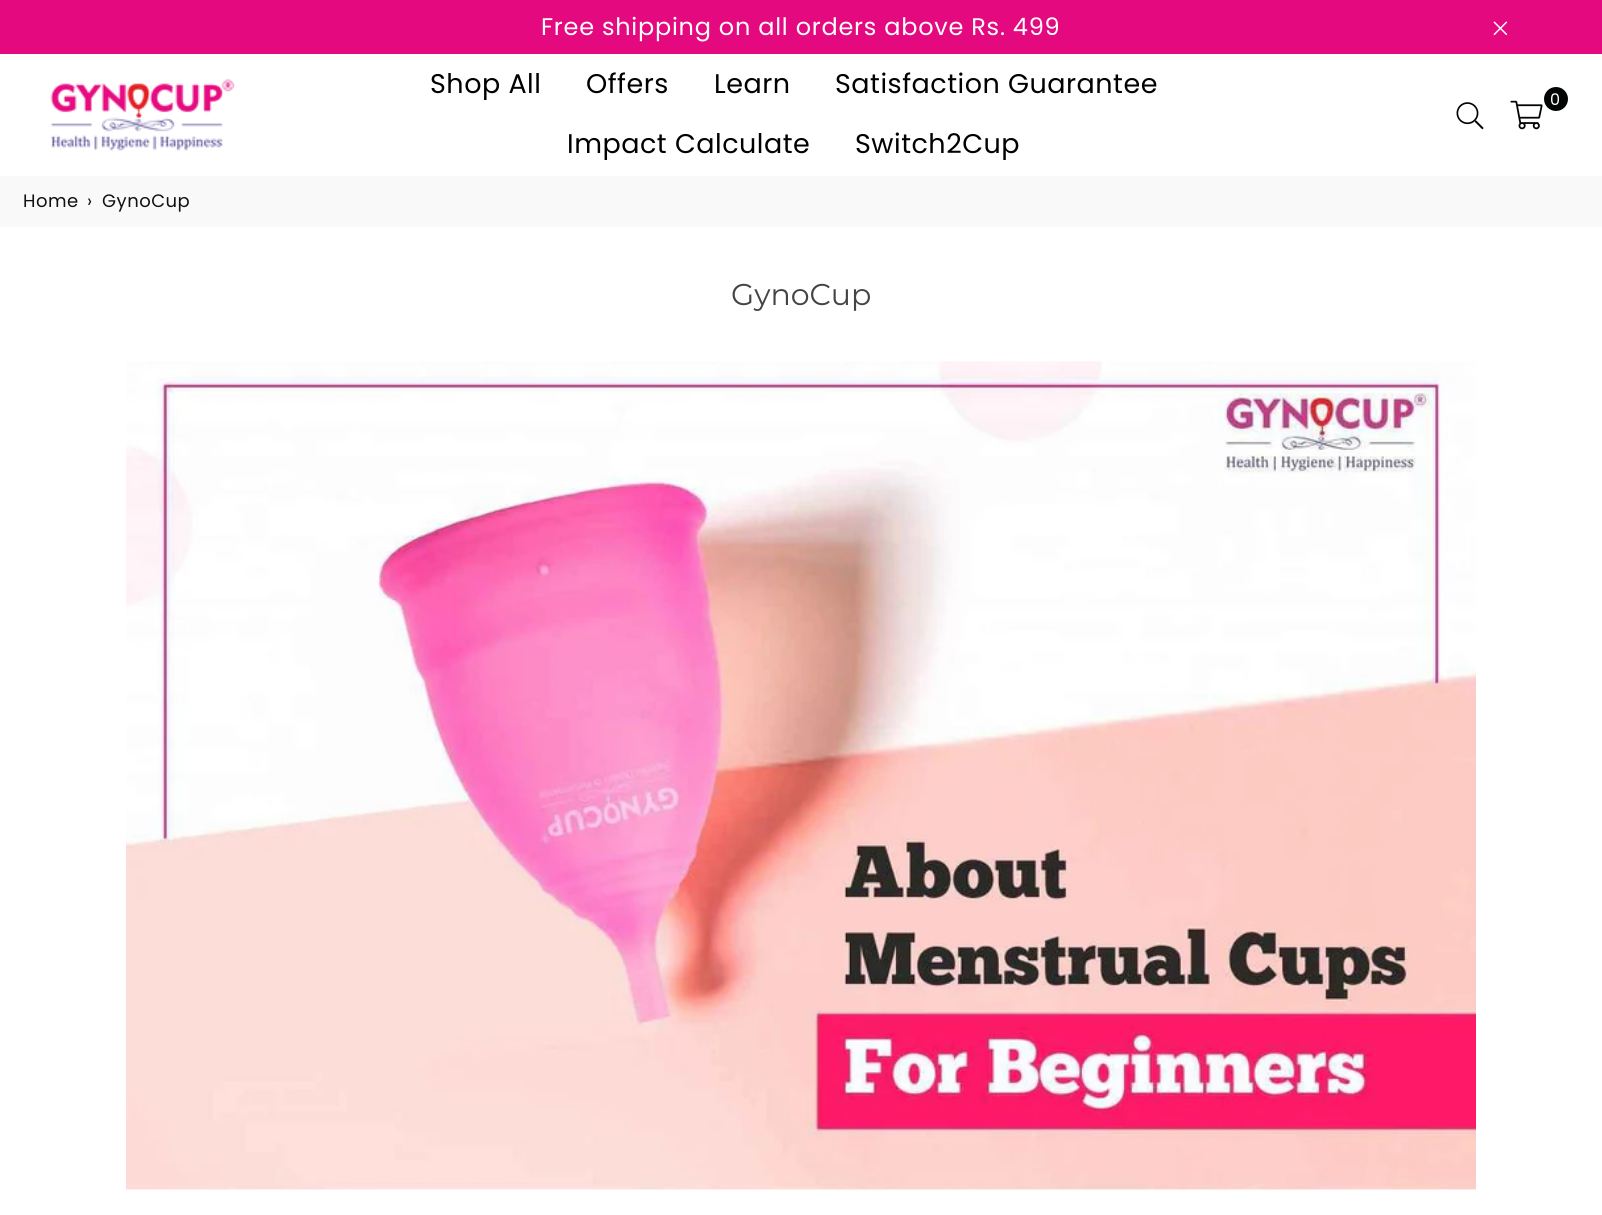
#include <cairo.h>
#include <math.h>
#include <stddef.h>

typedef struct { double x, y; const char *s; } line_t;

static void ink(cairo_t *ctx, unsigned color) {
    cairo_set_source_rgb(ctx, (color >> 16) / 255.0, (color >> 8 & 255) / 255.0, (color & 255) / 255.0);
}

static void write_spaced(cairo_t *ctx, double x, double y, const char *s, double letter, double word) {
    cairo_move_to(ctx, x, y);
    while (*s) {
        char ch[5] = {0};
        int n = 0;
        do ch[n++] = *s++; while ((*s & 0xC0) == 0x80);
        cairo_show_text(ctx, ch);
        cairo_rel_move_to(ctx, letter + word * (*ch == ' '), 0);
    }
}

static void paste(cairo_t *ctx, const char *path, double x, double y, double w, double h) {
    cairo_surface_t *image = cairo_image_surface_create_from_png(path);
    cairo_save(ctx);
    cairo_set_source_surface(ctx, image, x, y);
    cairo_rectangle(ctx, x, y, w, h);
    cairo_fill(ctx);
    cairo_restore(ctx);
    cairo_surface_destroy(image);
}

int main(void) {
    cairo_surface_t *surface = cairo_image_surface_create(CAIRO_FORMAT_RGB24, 1602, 1215);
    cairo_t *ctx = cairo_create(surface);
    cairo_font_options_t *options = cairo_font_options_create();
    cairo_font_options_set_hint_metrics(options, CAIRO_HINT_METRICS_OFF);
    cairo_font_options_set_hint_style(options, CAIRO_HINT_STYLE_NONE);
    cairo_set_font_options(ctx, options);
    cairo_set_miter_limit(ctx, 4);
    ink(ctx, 0xFFFFFF);
    cairo_paint(ctx);
    ink(ctx, 0xE5097F);
    cairo_rectangle(ctx, 0, 0, 1602, 54);
    cairo_fill(ctx);
    cairo_select_font_face(ctx, "Poppins", CAIRO_FONT_SLANT_NORMAL, CAIRO_FONT_WEIGHT_NORMAL);
    cairo_set_font_size(ctx, 24);
    ink(ctx, 0xFFFFFF);
    write_spaced(ctx, 541, 35, "Free shipping on all orders above Rs. 499", 0.75, 0);
    paste(ctx, "media/1.png", 1493, 21, 15, 15);
    paste(ctx, "media/2.png", 50, 79, 185, 72);
    cairo_set_font_size(ctx, 27);
    ink(ctx, 0x000000);
    {
        static const line_t items[] = {
            {430, 93, "Shop All"},
            {586, 93, "Offers"},
            {714, 93, "Learn"},
            {835, 93, "Satisfaction Guarantee"},
            {567, 153, "Impact Calculate"},
            {855, 153, "Switch2Cup"},
        };
        for (size_t i = 0; i < sizeof items / sizeof *items; i++) {
            write_spaced(ctx, items[i].x, items[i].y, items[i].s, 0.5, 0);
        }
    }
    ink(ctx, 0x030505);
    cairo_new_path(ctx);
    cairo_arc(ctx, 1556, 99, 12, 0, 2 * M_PI);
    cairo_fill(ctx);
    cairo_set_font_size(ctx, 16);
    ink(ctx, 0xFFFFFF);
    write_spaced(ctx, 1550, 105, "0", 0.5, 0);
    paste(ctx, "media/3.png", 1510, 100, 33, 30);
    paste(ctx, "media/4.png", 1456, 102, 28, 28);
    ink(ctx, 0xF9F9F9);
    cairo_rectangle(ctx, 0, 176, 1602, 51);
    cairo_fill(ctx);
    cairo_set_font_size(ctx, 18);
    ink(ctx, 0x111111);
    {
        static const line_t items[] = {
            {23, 207, "Home"},
            {87, 207, "›"},
            {102, 207, "GynoCup"},
        };
        for (size_t i = 0; i < sizeof items / sizeof *items; i++) {
            write_spaced(ctx, items[i].x, items[i].y, items[i].s, 0.5, 0);
        }
    }
    cairo_select_font_face(ctx, "Montserrat", CAIRO_FONT_SLANT_NORMAL, CAIRO_FONT_WEIGHT_NORMAL);
    cairo_set_font_size(ctx, 30);
    ink(ctx, 0x444444);
    cairo_move_to(ctx, 731, 305);
    cairo_show_text(ctx, "GynoCup");
    paste(ctx, "media/5.png", 126, 361, 1350, 829);
    cairo_surface_write_to_png(surface, "image.png");
    cairo_font_options_destroy(options);
    cairo_destroy(ctx);
    cairo_surface_destroy(surface);
    return 0;
}
